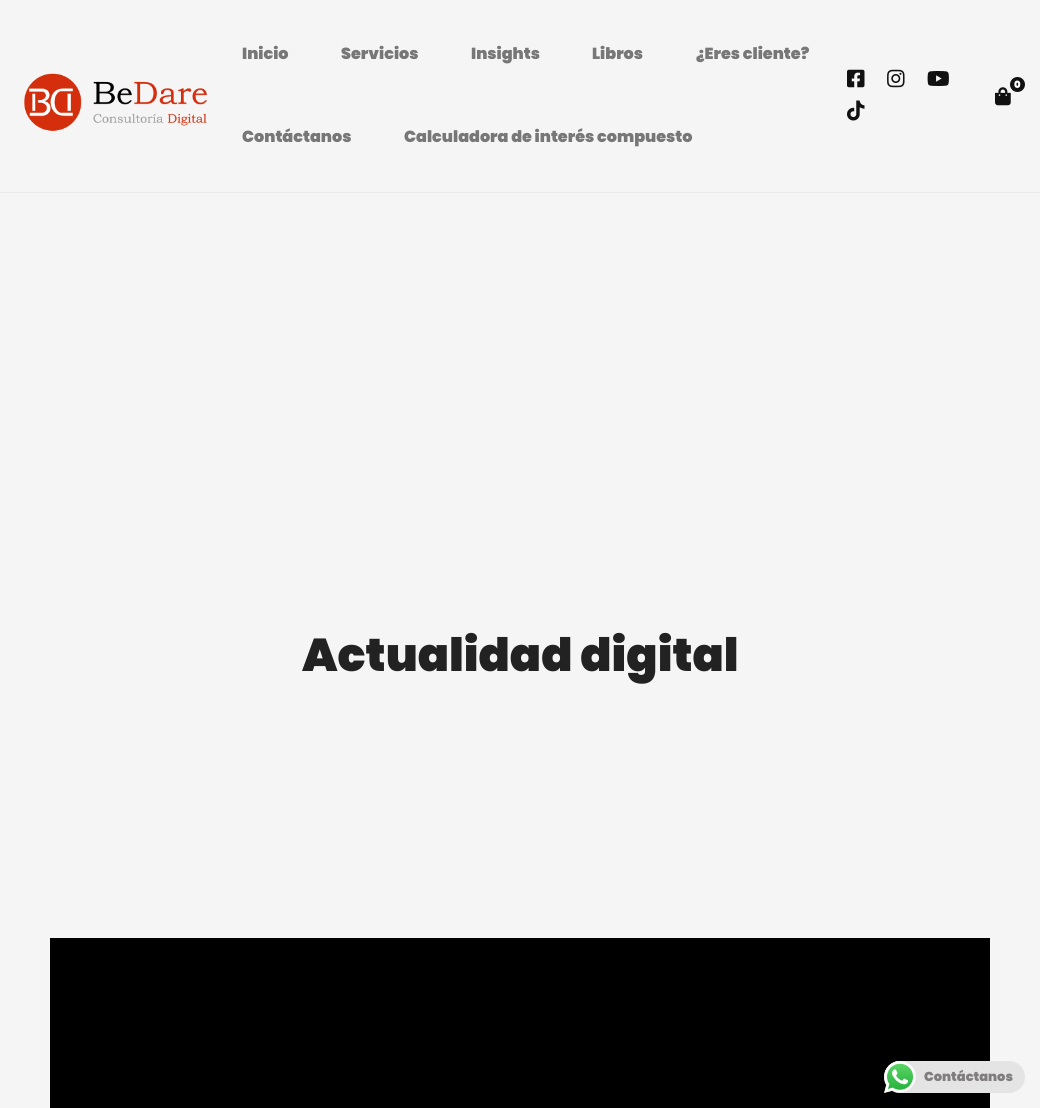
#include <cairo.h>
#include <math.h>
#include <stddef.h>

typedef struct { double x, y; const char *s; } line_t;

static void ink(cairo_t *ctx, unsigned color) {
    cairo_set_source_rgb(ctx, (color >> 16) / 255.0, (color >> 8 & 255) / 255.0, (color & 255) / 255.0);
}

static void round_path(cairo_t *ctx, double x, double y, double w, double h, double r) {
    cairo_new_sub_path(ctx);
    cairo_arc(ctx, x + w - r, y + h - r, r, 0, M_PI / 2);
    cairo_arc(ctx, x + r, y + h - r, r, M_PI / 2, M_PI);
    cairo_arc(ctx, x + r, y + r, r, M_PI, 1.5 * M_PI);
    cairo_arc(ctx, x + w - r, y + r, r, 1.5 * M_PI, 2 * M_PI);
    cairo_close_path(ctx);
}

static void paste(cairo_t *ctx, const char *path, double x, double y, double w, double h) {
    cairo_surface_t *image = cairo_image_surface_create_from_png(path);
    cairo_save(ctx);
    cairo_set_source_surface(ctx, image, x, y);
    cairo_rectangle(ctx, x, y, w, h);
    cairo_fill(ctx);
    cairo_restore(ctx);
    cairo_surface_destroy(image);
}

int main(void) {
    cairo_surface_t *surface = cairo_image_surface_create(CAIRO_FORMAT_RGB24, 1040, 1108);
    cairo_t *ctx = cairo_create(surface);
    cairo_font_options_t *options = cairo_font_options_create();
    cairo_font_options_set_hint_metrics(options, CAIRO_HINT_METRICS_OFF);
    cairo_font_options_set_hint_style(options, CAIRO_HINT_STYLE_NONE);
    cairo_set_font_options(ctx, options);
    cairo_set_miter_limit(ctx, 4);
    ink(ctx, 0xF5F5F5);
    cairo_paint(ctx);
    ink(ctx, 0xEAEAEA);
    cairo_rectangle(ctx, 0, 192, 1040, 1);
    cairo_fill(ctx);
    paste(ctx, "media/1.png", 24, 73, 183, 58);
    cairo_select_font_face(ctx, "Poppins Black", CAIRO_FONT_SLANT_NORMAL, CAIRO_FONT_WEIGHT_NORMAL);
    cairo_set_font_size(ctx, 16);
    ink(ctx, 0x777777);
    {
        static const line_t items[] = {
            {242, 59, "Inicio"},
            {341, 59, "Servicios"},
            {471, 59, "Insights"},
            {592, 59, "Libros"},
            {696, 59, "¿Eres cliente?"},
            {242, 142, "Contáctanos"},
            {404, 142, "Calculadora de interés compuesto"},
        };
        for (size_t i = 0; i < sizeof items / sizeof *items; i++) {
            cairo_move_to(ctx, items[i].x, items[i].y);
            cairo_show_text(ctx, items[i].s);
        }
    }
    paste(ctx, "media/2.png", 847, 69, 18, 19);
    paste(ctx, "media/3.png", 887, 69, 18, 19);
    paste(ctx, "media/4.png", 927, 71, 22, 15);
    paste(ctx, "media/5.png", 847, 100, 18, 21);
    paste(ctx, "media/6.png", 995, 87, 16, 19);
    ink(ctx, 0x111111);
    cairo_arc(ctx, 1017.5, 84.5, 7.5, 0, 2 * M_PI);
    cairo_fill(ctx);
    cairo_set_font_size(ctx, 10);
    ink(ctx, 0xFFFFFF);
    cairo_move_to(ctx, 1014, 88);
    cairo_show_text(ctx, "0");
    cairo_set_font_size(ctx, 46);
    ink(ctx, 0x222222);
    cairo_move_to(ctx, 302, 671);
    cairo_show_text(ctx, "Actualidad digital");
    ink(ctx, 0x000000);
    cairo_rectangle(ctx, 50, 938, 940, 170);
    cairo_fill(ctx);
    ink(ctx, 0xE4E4E4);
    round_path(ctx, 884, 1061, 141, 32, 16);
    cairo_fill(ctx);
    paste(ctx, "media/7.png", 884, 1061, 32, 32);
    cairo_set_font_size(ctx, 13);
    ink(ctx, 0x7F7D7D);
    cairo_move_to(ctx, 924, 1081);
    cairo_show_text(ctx, "Contáctanos");
    cairo_surface_write_to_png(surface, "image.png");
    cairo_font_options_destroy(options);
    cairo_destroy(ctx);
    cairo_surface_destroy(surface);
    return 0;
}
